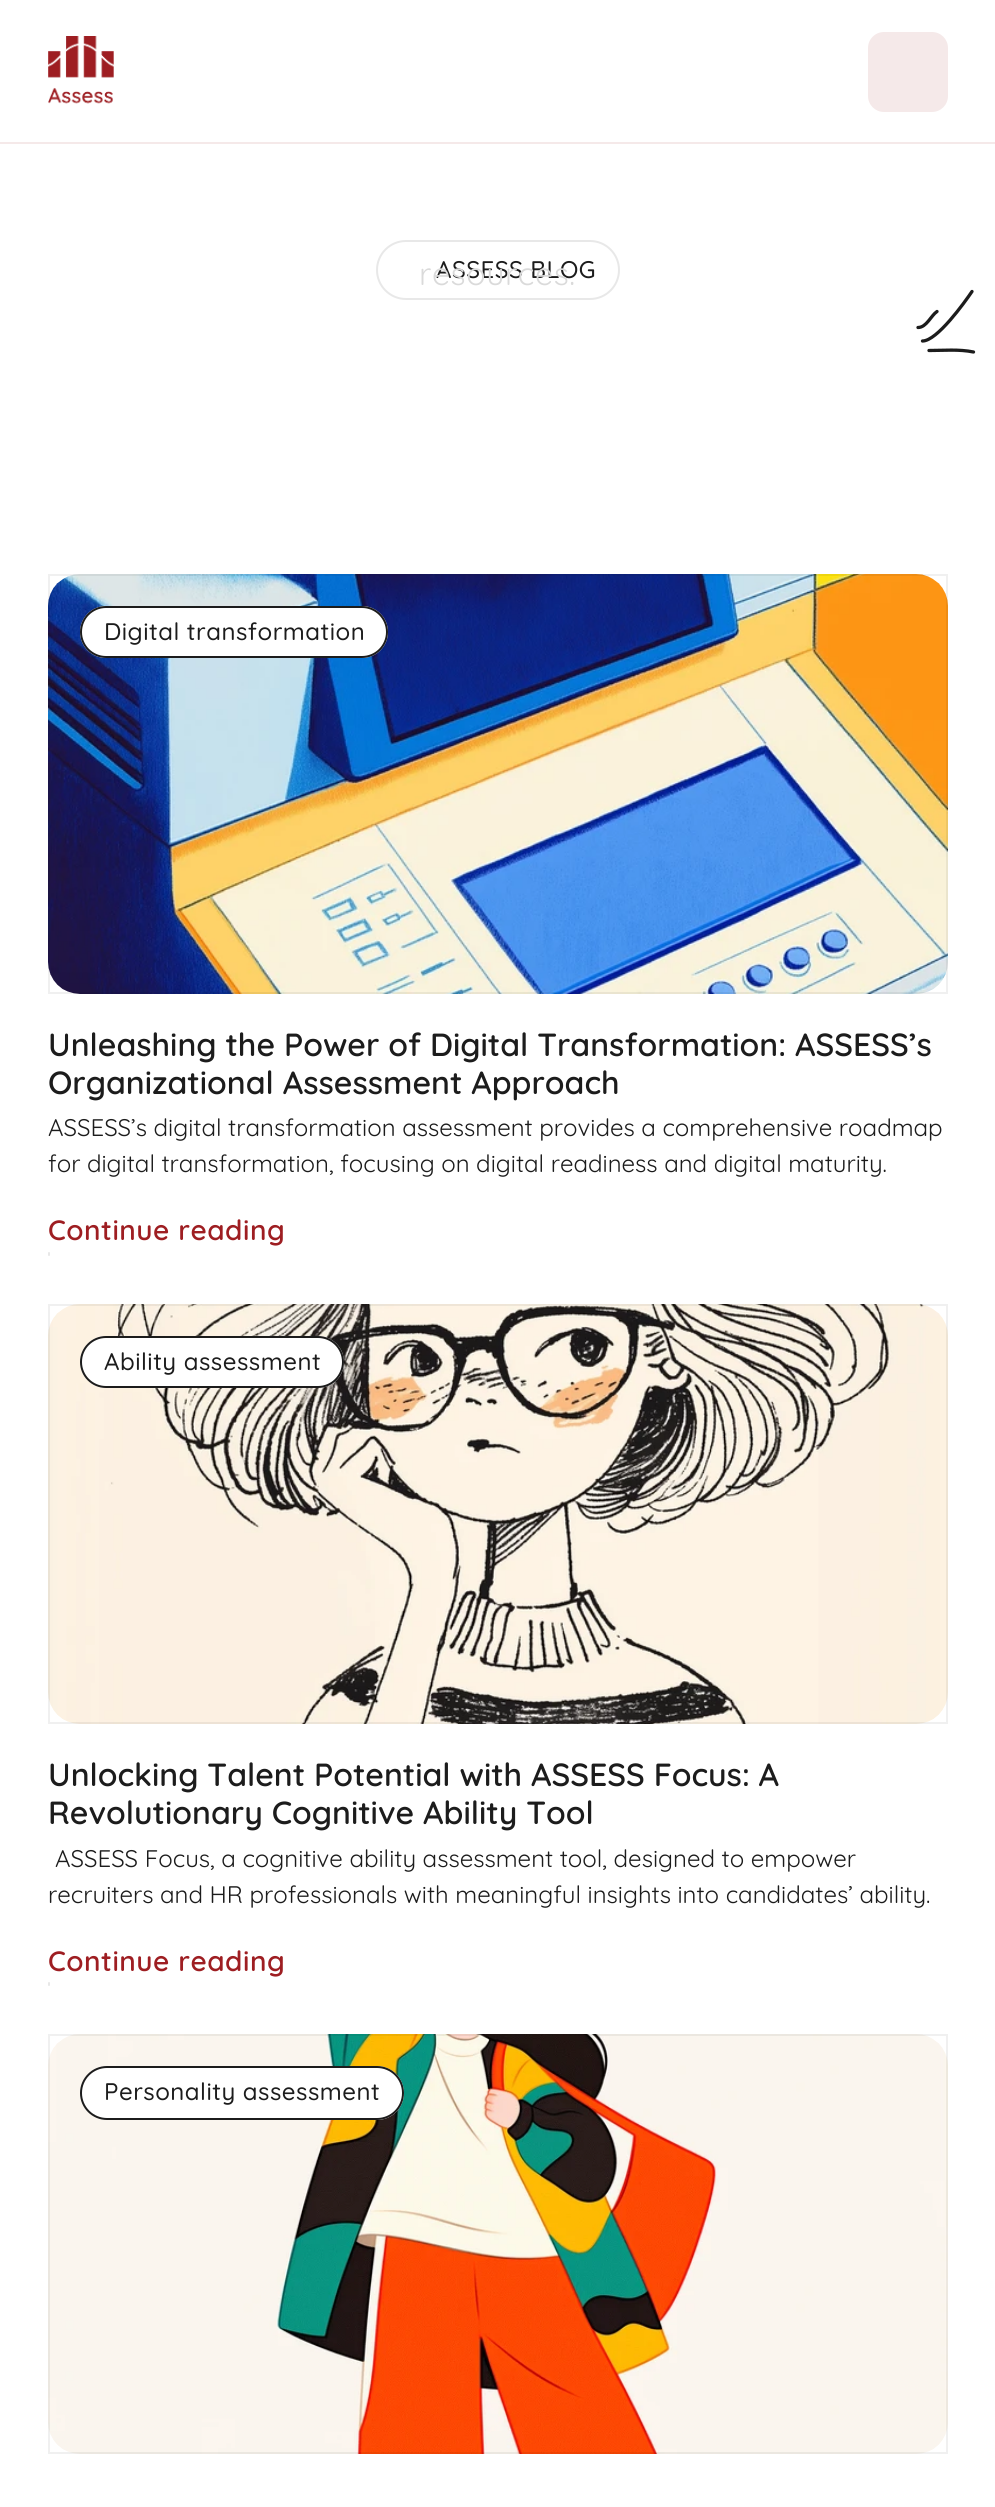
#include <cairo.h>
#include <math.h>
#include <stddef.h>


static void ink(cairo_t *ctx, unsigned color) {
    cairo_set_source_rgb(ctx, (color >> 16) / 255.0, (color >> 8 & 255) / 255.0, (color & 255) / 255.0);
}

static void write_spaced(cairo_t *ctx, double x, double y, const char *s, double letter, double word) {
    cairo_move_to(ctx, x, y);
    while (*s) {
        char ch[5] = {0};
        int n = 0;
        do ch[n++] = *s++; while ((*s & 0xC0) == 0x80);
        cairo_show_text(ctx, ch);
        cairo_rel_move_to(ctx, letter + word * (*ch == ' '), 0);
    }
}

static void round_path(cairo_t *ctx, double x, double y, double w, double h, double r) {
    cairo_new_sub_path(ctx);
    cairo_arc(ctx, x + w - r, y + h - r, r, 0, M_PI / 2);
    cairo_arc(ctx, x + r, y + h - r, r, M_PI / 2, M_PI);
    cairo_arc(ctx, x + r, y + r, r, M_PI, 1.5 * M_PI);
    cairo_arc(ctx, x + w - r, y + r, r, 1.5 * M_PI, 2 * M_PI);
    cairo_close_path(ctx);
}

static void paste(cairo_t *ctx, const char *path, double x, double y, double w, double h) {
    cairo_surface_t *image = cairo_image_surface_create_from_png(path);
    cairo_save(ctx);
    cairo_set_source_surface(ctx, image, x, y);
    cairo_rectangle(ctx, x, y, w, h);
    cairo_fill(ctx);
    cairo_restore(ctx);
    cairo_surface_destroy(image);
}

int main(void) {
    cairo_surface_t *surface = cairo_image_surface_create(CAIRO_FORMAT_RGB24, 995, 2507);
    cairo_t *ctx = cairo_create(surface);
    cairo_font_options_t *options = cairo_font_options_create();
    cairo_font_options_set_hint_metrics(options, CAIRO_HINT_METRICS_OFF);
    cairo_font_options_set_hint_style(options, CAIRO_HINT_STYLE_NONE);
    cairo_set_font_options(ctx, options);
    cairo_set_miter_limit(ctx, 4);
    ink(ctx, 0xFFFFFF);
    cairo_paint(ctx);
    paste(ctx, "media/1.png", 48, 36, 66, 68);
    ink(ctx, 0xF5E9E9);
    round_path(ctx, 868, 32, 80, 80, 16);
    cairo_fill(ctx);
    cairo_rectangle(ctx, 0, 142, 995, 2);
    cairo_fill(ctx);
    round_path(ctx, 377, 241, 242, 58, 29);
    ink(ctx, 0xE8E8E8);
    cairo_stroke(ctx);
    cairo_select_font_face(ctx, "Quicksand Medium", CAIRO_FONT_SLANT_NORMAL, CAIRO_FONT_WEIGHT_NORMAL);
    cairo_set_font_size(ctx, 24);
    ink(ctx, 0x1C1C1C);
    write_spaced(ctx, 436, 278, "ASSESS BLOG", 0.5, 0);
    cairo_select_font_face(ctx, "Quicksand", CAIRO_FONT_SLANT_NORMAL, CAIRO_FONT_WEIGHT_NORMAL);
    cairo_set_font_size(ctx, 32);
    ink(ctx, 0xDADADA);
    write_spaced(ctx, 419, 285, "resources.", 0.6, 0);
    cairo_new_path(ctx);
    cairo_move_to(ctx, 918, 327.5);
    cairo_curve_to(ctx, 926.5, 327.5, 931, 315.5, 937, 311.5);
    cairo_move_to(ctx, 922.5, 341);
    cairo_curve_to(ctx, 937, 341, 964.5, 302.5, 972, 291.5);
    cairo_move_to(ctx, 929, 350.5);
    cairo_curve_to(ctx, 943.5, 350.5, 959, 349, 973.5, 352);
    ink(ctx, 0x1C1C1C);
    cairo_set_line_width(ctx, 3.3);
    cairo_set_line_cap(ctx, CAIRO_LINE_CAP_ROUND);
    cairo_stroke(ctx);
    paste(ctx, "media/2.png", 48, 574, 900, 420);
    ink(ctx, 0xFFFFFF);
    round_path(ctx, 80, 606, 308, 52, 26);
    cairo_fill(ctx);
    round_path(ctx, 81, 607, 306, 50, 25);
    ink(ctx, 0x1C1C1C);
    cairo_set_line_width(ctx, 2);
    cairo_set_line_cap(ctx, CAIRO_LINE_CAP_BUTT);
    cairo_stroke(ctx);
    cairo_rectangle(ctx, 49, 575, 898, 418);
    cairo_set_source_rgba(ctx, 0, 0, 0, 0.06);
    cairo_stroke(ctx);
    cairo_select_font_face(ctx, "Quicksand Medium", CAIRO_FONT_SLANT_NORMAL, CAIRO_FONT_WEIGHT_NORMAL);
    cairo_set_font_size(ctx, 24);
    ink(ctx, 0x1C1C1C);
    write_spaced(ctx, 104, 640, "Digital transformation", 0.5, 0);
    cairo_select_font_face(ctx, "Quicksand SemiBold", CAIRO_FONT_SLANT_NORMAL, CAIRO_FONT_WEIGHT_NORMAL);
    cairo_set_font_size(ctx, 32);
    cairo_move_to(ctx, 48, 1056);
    cairo_show_text(ctx, "Unleashing the Power of Digital Transformation: ASSESS’s");
    cairo_move_to(ctx, 48, 1094);
    cairo_show_text(ctx, "Organizational Assessment Approach");
    cairo_select_font_face(ctx, "Quicksand", CAIRO_FONT_SLANT_NORMAL, CAIRO_FONT_WEIGHT_NORMAL);
    cairo_set_font_size(ctx, 24);
    cairo_move_to(ctx, 48, 1136);
    cairo_show_text(ctx, "ASSESS’s digital transformation assessment provides a comprehensive roadmap");
    cairo_move_to(ctx, 48, 1172);
    cairo_show_text(ctx, "for digital transformation, focusing on digital readiness and digital maturity.");
    cairo_select_font_face(ctx, "Quicksand SemiBold", CAIRO_FONT_SLANT_NORMAL, CAIRO_FONT_WEIGHT_NORMAL);
    cairo_set_font_size(ctx, 28);
    ink(ctx, 0x9E1E22);
    write_spaced(ctx, 48, 1240, "Continue reading", 0.5, 0);
    ink(ctx, 0xE8E8E8);
    round_path(ctx, 48, 1252, 2, 4, 1);
    cairo_fill(ctx);
    paste(ctx, "media/3.png", 48, 1304, 900, 420);
    ink(ctx, 0xFFFFFF);
    round_path(ctx, 80, 1336, 264, 52, 26);
    cairo_fill(ctx);
    round_path(ctx, 81, 1337, 262, 50, 25);
    ink(ctx, 0x1C1C1C);
    cairo_stroke(ctx);
    cairo_rectangle(ctx, 49, 1305, 898, 418);
    cairo_set_source_rgba(ctx, 0, 0, 0, 0.06);
    cairo_stroke(ctx);
    cairo_select_font_face(ctx, "Quicksand Medium", CAIRO_FONT_SLANT_NORMAL, CAIRO_FONT_WEIGHT_NORMAL);
    cairo_set_font_size(ctx, 24);
    ink(ctx, 0x1C1C1C);
    write_spaced(ctx, 104, 1370, "Ability assessment", 0.5, 0);
    cairo_select_font_face(ctx, "Quicksand SemiBold", CAIRO_FONT_SLANT_NORMAL, CAIRO_FONT_WEIGHT_NORMAL);
    cairo_set_font_size(ctx, 32);
    cairo_move_to(ctx, 48, 1786);
    cairo_show_text(ctx, "Unlocking Talent Potential with ASSESS Focus: A");
    cairo_move_to(ctx, 48, 1824);
    cairo_show_text(ctx, "Revolutionary Cognitive Ability Tool");
    cairo_select_font_face(ctx, "Quicksand", CAIRO_FONT_SLANT_NORMAL, CAIRO_FONT_WEIGHT_NORMAL);
    cairo_set_font_size(ctx, 24);
    cairo_move_to(ctx, 55, 1867);
    cairo_show_text(ctx, "ASSESS Focus, a cognitive ability assessment tool, designed to empower");
    cairo_move_to(ctx, 48, 1903);
    cairo_show_text(ctx, "recruiters and HR professionals with meaningful insights into candidates’ ability.");
    cairo_select_font_face(ctx, "Quicksand SemiBold", CAIRO_FONT_SLANT_NORMAL, CAIRO_FONT_WEIGHT_NORMAL);
    cairo_set_font_size(ctx, 28);
    ink(ctx, 0x9E1E22);
    write_spaced(ctx, 48, 1971, "Continue reading", 0.5, 0);
    ink(ctx, 0xE8E8E8);
    round_path(ctx, 48, 1982, 2, 4, 1);
    cairo_fill(ctx);
    paste(ctx, "media/4.png", 48, 2034, 900, 420);
    ink(ctx, 0xFFFFFF);
    round_path(ctx, 80, 2066, 324, 54, 27);
    cairo_fill(ctx);
    round_path(ctx, 81, 2067, 322, 52, 26);
    ink(ctx, 0x1C1C1C);
    cairo_stroke(ctx);
    cairo_rectangle(ctx, 49, 2035, 898, 418);
    cairo_set_source_rgba(ctx, 0, 0, 0, 0.06);
    cairo_stroke(ctx);
    cairo_select_font_face(ctx, "Quicksand Medium", CAIRO_FONT_SLANT_NORMAL, CAIRO_FONT_WEIGHT_NORMAL);
    cairo_set_font_size(ctx, 24);
    ink(ctx, 0x1C1C1C);
    write_spaced(ctx, 104, 2100, "Personality assessment", 0.5, 0);
    cairo_surface_write_to_png(surface, "image.png");
    cairo_font_options_destroy(options);
    cairo_destroy(ctx);
    cairo_surface_destroy(surface);
    return 0;
}
